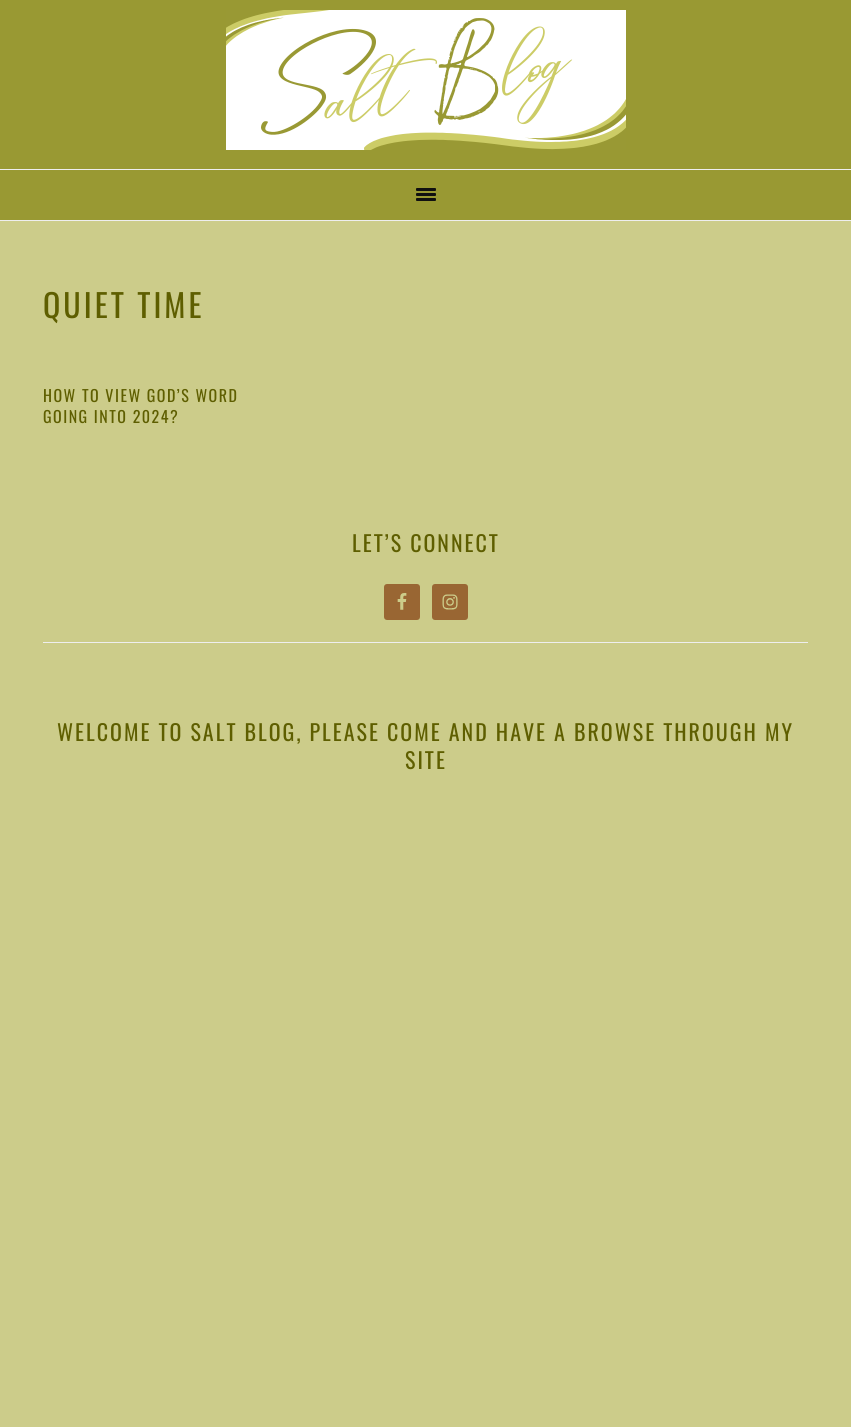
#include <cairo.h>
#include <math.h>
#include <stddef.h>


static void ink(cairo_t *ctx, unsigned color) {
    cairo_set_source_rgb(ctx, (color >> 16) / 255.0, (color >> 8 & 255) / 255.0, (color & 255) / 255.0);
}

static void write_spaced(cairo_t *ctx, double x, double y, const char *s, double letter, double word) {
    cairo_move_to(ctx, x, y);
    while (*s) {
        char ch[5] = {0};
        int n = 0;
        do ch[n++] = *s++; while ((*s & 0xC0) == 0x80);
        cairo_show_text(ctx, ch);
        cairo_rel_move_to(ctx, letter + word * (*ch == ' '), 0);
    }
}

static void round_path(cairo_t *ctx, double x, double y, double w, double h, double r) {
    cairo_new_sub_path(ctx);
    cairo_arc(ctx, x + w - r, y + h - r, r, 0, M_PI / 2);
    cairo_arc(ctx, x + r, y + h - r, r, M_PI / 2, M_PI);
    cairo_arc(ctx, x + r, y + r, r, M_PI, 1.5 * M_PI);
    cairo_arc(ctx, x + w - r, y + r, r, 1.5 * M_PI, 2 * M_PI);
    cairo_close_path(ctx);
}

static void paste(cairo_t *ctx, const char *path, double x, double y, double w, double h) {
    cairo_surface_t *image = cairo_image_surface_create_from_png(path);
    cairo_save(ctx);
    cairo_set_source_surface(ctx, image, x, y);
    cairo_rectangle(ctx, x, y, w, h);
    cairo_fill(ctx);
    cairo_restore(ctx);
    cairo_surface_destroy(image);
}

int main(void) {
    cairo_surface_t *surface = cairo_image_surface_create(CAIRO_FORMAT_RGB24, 851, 1427);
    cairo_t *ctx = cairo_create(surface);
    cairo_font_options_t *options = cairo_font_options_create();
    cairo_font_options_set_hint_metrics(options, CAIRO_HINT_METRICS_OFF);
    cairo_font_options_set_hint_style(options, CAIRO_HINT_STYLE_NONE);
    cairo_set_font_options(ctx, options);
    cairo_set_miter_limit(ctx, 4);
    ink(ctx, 0x999933);
    cairo_paint(ctx);
    paste(ctx, "media/1.png", 226, 10, 400, 140);
    ink(ctx, 0xEEEEEE);
    cairo_rectangle(ctx, 0, 169, 851, 1);
    cairo_fill(ctx);
    cairo_rectangle(ctx, 0, 220, 851, 1);
    cairo_fill(ctx);
    ink(ctx, 0x101010);
    round_path(ctx, 416, 193, 20, 3, 1);
    cairo_fill(ctx);
    round_path(ctx, 416, 188, 20, 3, 1);
    cairo_fill(ctx);
    round_path(ctx, 416, 198, 20, 3, 1);
    cairo_fill(ctx);
    ink(ctx, 0xCCCC8A);
    cairo_rectangle(ctx, 0, 221, 851, 1206);
    cairo_fill(ctx);
    cairo_select_font_face(ctx, "Oswald", CAIRO_FONT_SLANT_NORMAL, CAIRO_FONT_WEIGHT_NORMAL);
    cairo_set_font_size(ctx, 32);
    ink(ctx, 0x5E5E00);
    write_spaced(ctx, 43, 318, "QUIET TIME", 3, 0);
    cairo_set_font_size(ctx, 16);
    write_spaced(ctx, 43, 402, "HOW TO VIEW GOD’S WORD", 1.5, 0);
    write_spaced(ctx, 43, 423, "GOING INTO 2024?", 1.5, 0);
    ink(ctx, 0xEEEEEE);
    cairo_rectangle(ctx, 43, 642, 765, 1);
    cairo_fill(ctx);
    cairo_set_font_size(ctx, 22);
    ink(ctx, 0x5E5E00);
    write_spaced(ctx, 352, 552, "LET’S CONNECT", 2, 0);
    ink(ctx, 0x996633);
    round_path(ctx, 384, 584, 36, 36, 3);
    cairo_fill(ctx);
    paste(ctx, "media/2.png", 397, 593, 10, 17);
    round_path(ctx, 432, 584, 36, 36, 3);
    cairo_fill(ctx);
    paste(ctx, "media/3.png", 442, 594, 16, 16);
    ink(ctx, 0x5E5E00);
    write_spaced(ctx, 57, 741, "WELCOME TO SALT BLOG, PLEASE COME AND HAVE A BROWSE THROUGH MY", 2, 0);
    write_spaced(ctx, 405, 769, "SITE", 2, 0);
    cairo_surface_write_to_png(surface, "image.png");
    cairo_font_options_destroy(options);
    cairo_destroy(ctx);
    cairo_surface_destroy(surface);
    return 0;
}
